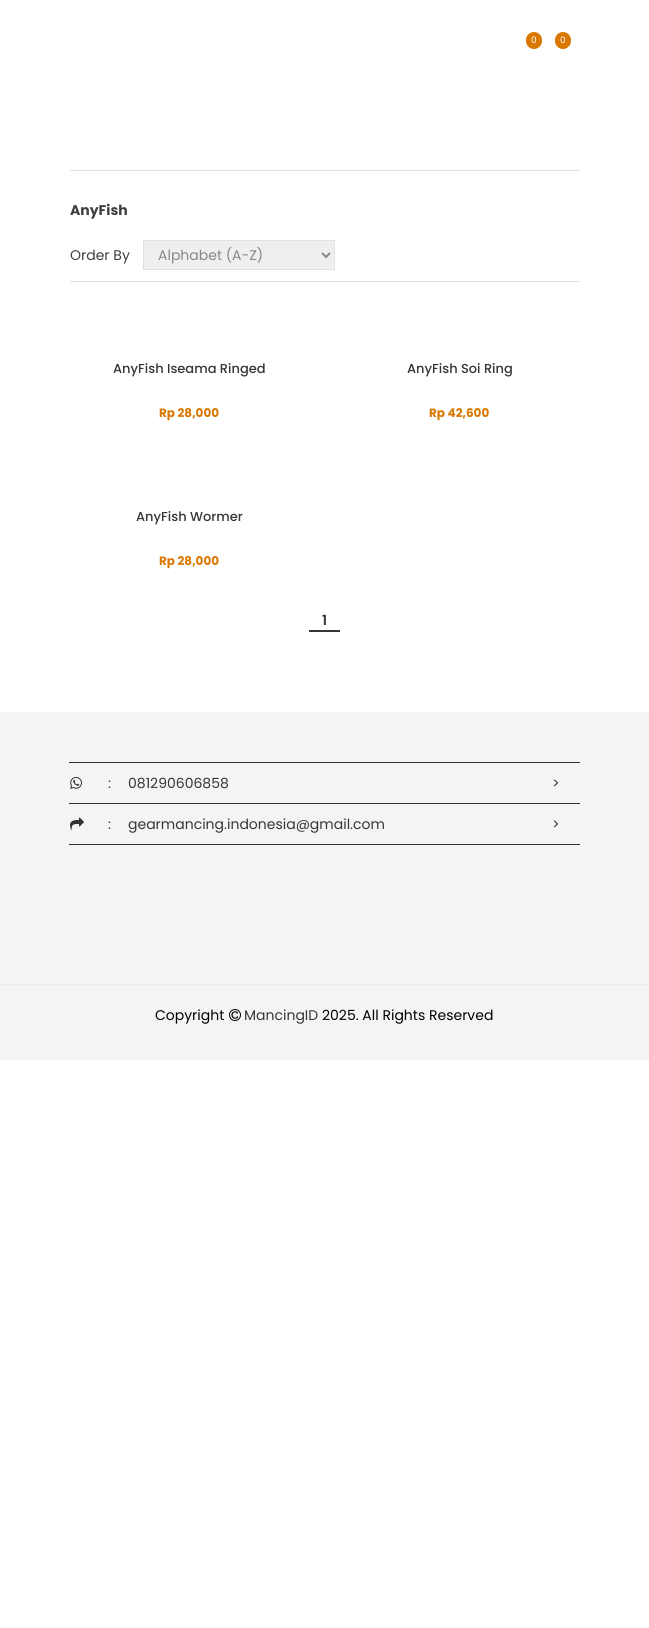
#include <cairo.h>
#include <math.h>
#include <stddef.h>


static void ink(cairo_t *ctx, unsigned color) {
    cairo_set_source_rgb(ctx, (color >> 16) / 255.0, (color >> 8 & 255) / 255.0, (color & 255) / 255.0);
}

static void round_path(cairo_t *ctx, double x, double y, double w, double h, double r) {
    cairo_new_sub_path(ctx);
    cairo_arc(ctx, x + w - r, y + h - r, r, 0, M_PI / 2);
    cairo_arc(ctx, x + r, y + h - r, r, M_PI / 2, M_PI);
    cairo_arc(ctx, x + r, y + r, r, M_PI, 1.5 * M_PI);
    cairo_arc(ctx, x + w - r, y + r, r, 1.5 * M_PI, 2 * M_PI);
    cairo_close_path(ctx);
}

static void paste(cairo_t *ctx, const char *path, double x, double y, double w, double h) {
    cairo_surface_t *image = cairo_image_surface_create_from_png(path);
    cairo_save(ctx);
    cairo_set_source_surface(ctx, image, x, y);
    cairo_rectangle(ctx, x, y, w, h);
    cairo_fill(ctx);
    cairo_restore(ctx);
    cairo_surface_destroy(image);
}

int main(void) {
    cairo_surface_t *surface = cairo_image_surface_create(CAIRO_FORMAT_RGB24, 649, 1628);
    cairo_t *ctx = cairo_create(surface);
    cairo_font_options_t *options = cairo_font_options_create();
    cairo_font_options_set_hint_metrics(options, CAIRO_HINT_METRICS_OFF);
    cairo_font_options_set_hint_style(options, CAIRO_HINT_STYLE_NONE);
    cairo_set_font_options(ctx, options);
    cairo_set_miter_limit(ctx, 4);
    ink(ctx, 0xFFFFFF);
    cairo_paint(ctx);
    ink(ctx, 0xD97700);
    round_path(ctx, 526, 32, 16, 17, 8);
    cairo_fill(ctx);
    cairo_select_font_face(ctx, "Poppins", CAIRO_FONT_SLANT_NORMAL, CAIRO_FONT_WEIGHT_NORMAL);
    cairo_set_font_size(ctx, 9);
    ink(ctx, 0xFFFFFF);
    cairo_move_to(ctx, 531, 43);
    cairo_show_text(ctx, "0");
    ink(ctx, 0xD97700);
    round_path(ctx, 555, 32, 16, 17, 8);
    cairo_fill(ctx);
    ink(ctx, 0xFFFFFF);
    cairo_move_to(ctx, 560, 43);
    cairo_show_text(ctx, "0");
    ink(ctx, 0xE1E1E1);
    cairo_rectangle(ctx, 70, 170, 510, 1);
    cairo_fill(ctx);
    cairo_rectangle(ctx, 70, 281, 510, 1);
    cairo_fill(ctx);
    cairo_select_font_face(ctx, "Poppins", CAIRO_FONT_SLANT_NORMAL, CAIRO_FONT_WEIGHT_BOLD);
    cairo_set_font_size(ctx, 14);
    ink(ctx, 0x3F3F3F);
    cairo_move_to(ctx, 70, 215);
    cairo_show_text(ctx, "AnyFish");
    cairo_select_font_face(ctx, "Poppins", CAIRO_FONT_SLANT_NORMAL, CAIRO_FONT_WEIGHT_NORMAL);
    cairo_move_to(ctx, 70, 260);
    cairo_show_text(ctx, "Order By");
    ink(ctx, 0xEFEFEF);
    cairo_rectangle(ctx, 143.5, 240.5, 191, 29);
    cairo_fill_preserve(ctx);
    ink(ctx, 0xE1E1E1);
    cairo_set_line_width(ctx, 1);
    cairo_stroke(ctx);
    cairo_new_path(ctx);
    cairo_move_to(ctx, 322, 253);
    cairo_line_to(ctx, 326, 257);
    cairo_line_to(ctx, 330, 253);
    ink(ctx, 0x898888);
    cairo_set_line_width(ctx, 2);
    cairo_stroke(ctx);
    cairo_move_to(ctx, 158, 260);
    cairo_show_text(ctx, "Alphabet (A-Z)");
    cairo_select_font_face(ctx, "Poppins Medium", CAIRO_FONT_SLANT_NORMAL, CAIRO_FONT_WEIGHT_NORMAL);
    cairo_set_font_size(ctx, 13);
    ink(ctx, 0x363636);
    cairo_move_to(ctx, 113, 373);
    cairo_show_text(ctx, "AnyFish Iseama Ringed");
    cairo_select_font_face(ctx, "Poppins", CAIRO_FONT_SLANT_NORMAL, CAIRO_FONT_WEIGHT_BOLD);
    cairo_set_font_size(ctx, 12);
    ink(ctx, 0xD97700);
    cairo_move_to(ctx, 159, 417);
    cairo_show_text(ctx, "Rp 28,000");
    cairo_select_font_face(ctx, "Poppins Medium", CAIRO_FONT_SLANT_NORMAL, CAIRO_FONT_WEIGHT_NORMAL);
    cairo_set_font_size(ctx, 13);
    ink(ctx, 0x363636);
    cairo_move_to(ctx, 407, 373);
    cairo_show_text(ctx, "AnyFish Soi Ring");
    cairo_select_font_face(ctx, "Poppins", CAIRO_FONT_SLANT_NORMAL, CAIRO_FONT_WEIGHT_BOLD);
    cairo_set_font_size(ctx, 12);
    ink(ctx, 0xD97700);
    cairo_move_to(ctx, 429, 417);
    cairo_show_text(ctx, "Rp 42,600");
    cairo_select_font_face(ctx, "Poppins Medium", CAIRO_FONT_SLANT_NORMAL, CAIRO_FONT_WEIGHT_NORMAL);
    cairo_set_font_size(ctx, 13);
    ink(ctx, 0x363636);
    cairo_move_to(ctx, 136, 521);
    cairo_show_text(ctx, "AnyFish Wormer");
    cairo_select_font_face(ctx, "Poppins", CAIRO_FONT_SLANT_NORMAL, CAIRO_FONT_WEIGHT_BOLD);
    cairo_set_font_size(ctx, 12);
    ink(ctx, 0xD97700);
    cairo_move_to(ctx, 159, 565);
    cairo_show_text(ctx, "Rp 28,000");
    ink(ctx, 0x363636);
    cairo_rectangle(ctx, 309, 630, 31, 2);
    cairo_fill(ctx);
    cairo_select_font_face(ctx, "Poppins SemiBold", CAIRO_FONT_SLANT_NORMAL, CAIRO_FONT_WEIGHT_NORMAL);
    cairo_set_font_size(ctx, 14);
    cairo_move_to(ctx, 322, 625);
    cairo_show_text(ctx, "1");
    ink(ctx, 0xF4F4F4);
    cairo_rectangle(ctx, 0, 712, 649, 348);
    cairo_fill(ctx);
    ink(ctx, 0xEBEBEB);
    cairo_rectangle(ctx, 0, 984, 649, 1);
    cairo_fill(ctx);
    paste(ctx, "media/1.png", 70, 777, 12, 12);
    cairo_select_font_face(ctx, "Poppins", CAIRO_FONT_SLANT_NORMAL, CAIRO_FONT_WEIGHT_NORMAL);
    ink(ctx, 0x363636);
    cairo_move_to(ctx, 108, 788);
    cairo_show_text(ctx, ":");
    cairo_move_to(ctx, 128, 788);
    cairo_show_text(ctx, "081290606858");
    ink(ctx, 0x2E2E2E);
    cairo_rectangle(ctx, 69, 762, 511, 1);
    cairo_fill(ctx);
    ink(ctx, 0x363636);
    cairo_move_to(ctx, 552, 788);
    cairo_show_text(ctx, ">");
    paste(ctx, "media/2.png", 70, 817, 14, 13);
    cairo_move_to(ctx, 108, 829);
    cairo_show_text(ctx, ":");
    cairo_move_to(ctx, 128, 829);
    cairo_show_text(ctx, "gearmancing.indonesia@gmail.com");
    ink(ctx, 0x2E2E2E);
    cairo_rectangle(ctx, 69, 803, 511, 1);
    cairo_fill(ctx);
    cairo_rectangle(ctx, 69, 844, 511, 1);
    cairo_fill(ctx);
    ink(ctx, 0x363636);
    cairo_move_to(ctx, 552, 829);
    cairo_show_text(ctx, ">");
    ink(ctx, 0x000000);
    cairo_move_to(ctx, 155, 1020);
    cairo_show_text(ctx, "Copyright");
    paste(ctx, "media/3.png", 229, 1009, 12, 12);
    ink(ctx, 0x363636);
    cairo_move_to(ctx, 244, 1020);
    cairo_show_text(ctx, "MancingID");
    ink(ctx, 0x000000);
    cairo_move_to(ctx, 322, 1020);
    cairo_show_text(ctx, "2025. All Rights Reserved");
    cairo_surface_write_to_png(surface, "image.png");
    cairo_font_options_destroy(options);
    cairo_destroy(ctx);
    cairo_surface_destroy(surface);
    return 0;
}
